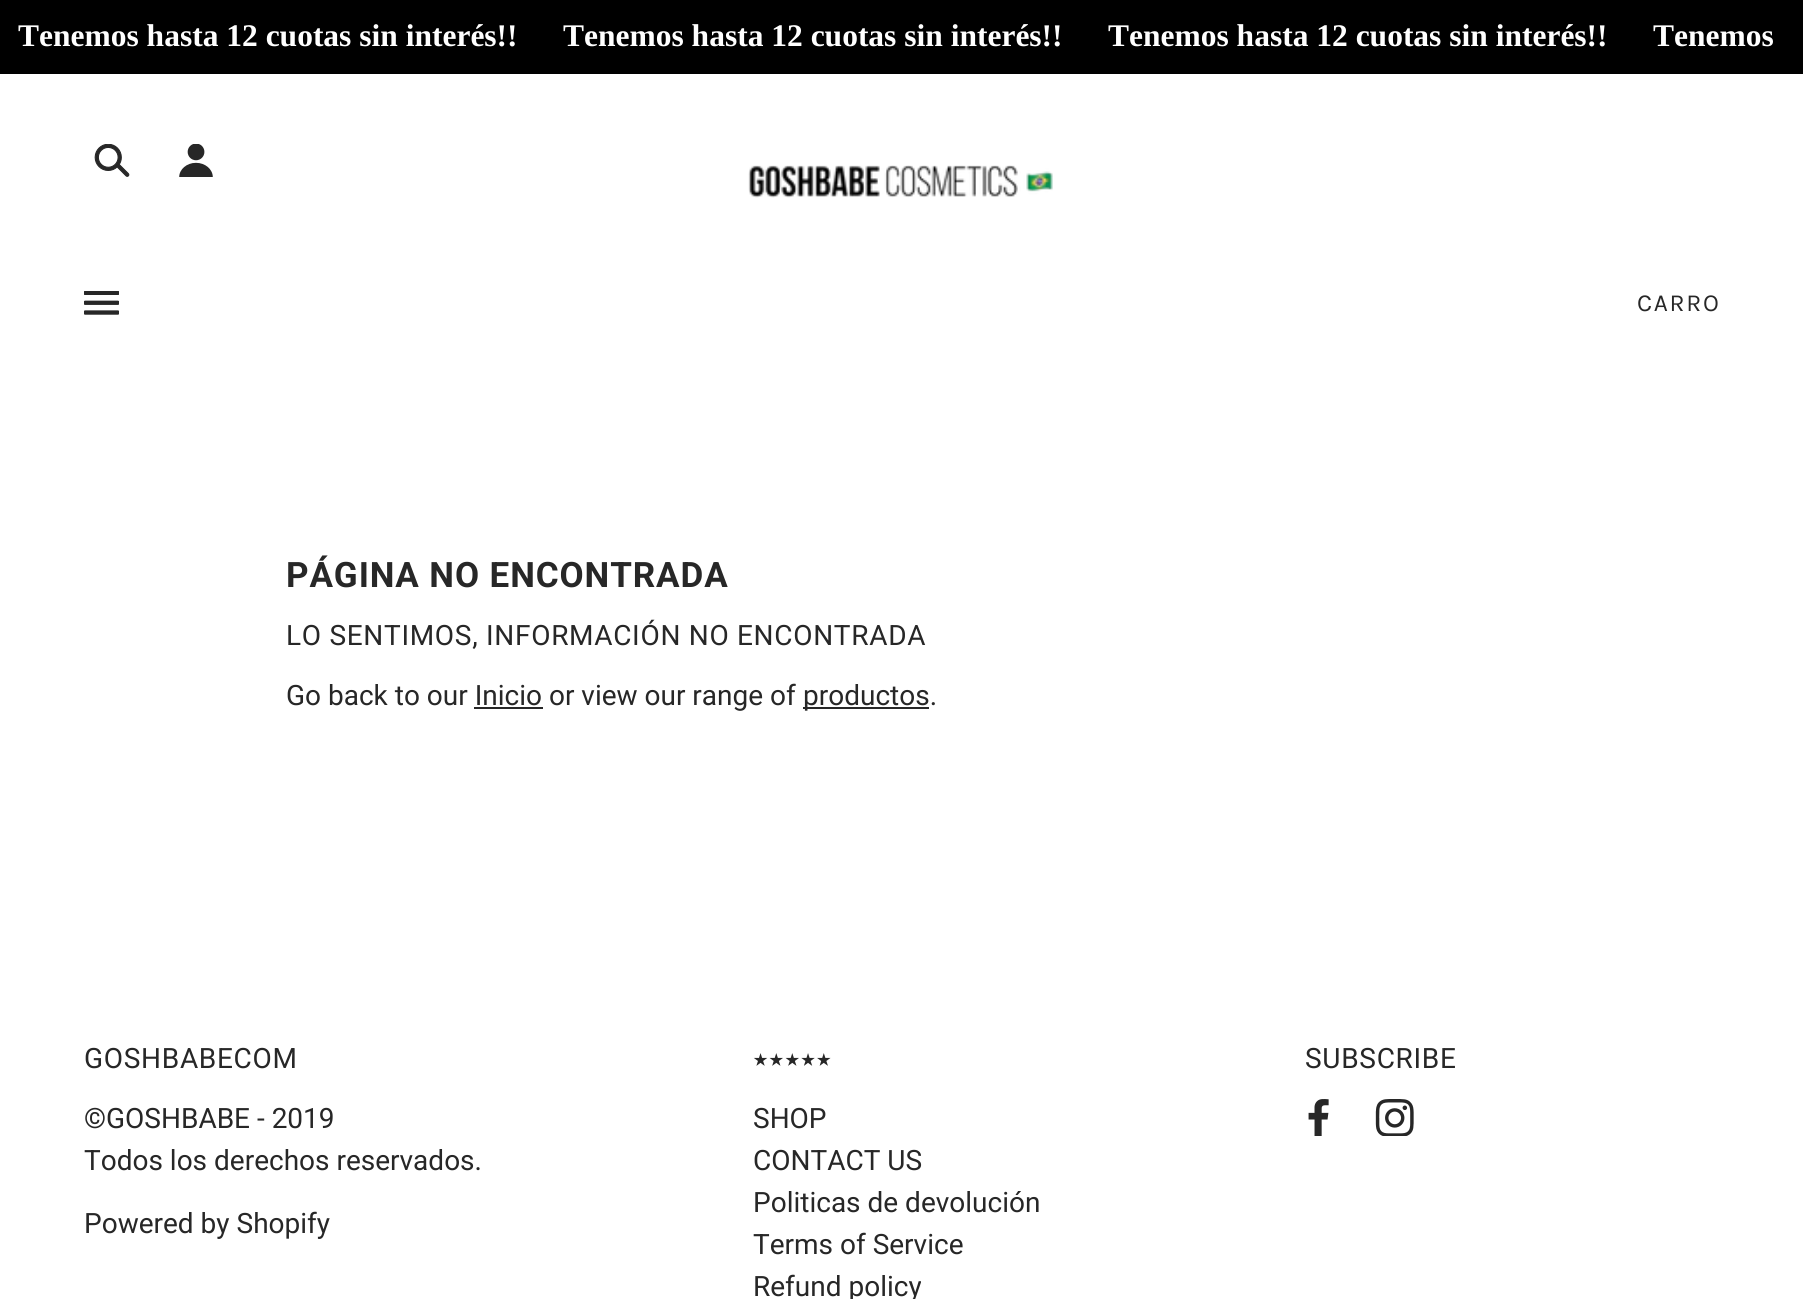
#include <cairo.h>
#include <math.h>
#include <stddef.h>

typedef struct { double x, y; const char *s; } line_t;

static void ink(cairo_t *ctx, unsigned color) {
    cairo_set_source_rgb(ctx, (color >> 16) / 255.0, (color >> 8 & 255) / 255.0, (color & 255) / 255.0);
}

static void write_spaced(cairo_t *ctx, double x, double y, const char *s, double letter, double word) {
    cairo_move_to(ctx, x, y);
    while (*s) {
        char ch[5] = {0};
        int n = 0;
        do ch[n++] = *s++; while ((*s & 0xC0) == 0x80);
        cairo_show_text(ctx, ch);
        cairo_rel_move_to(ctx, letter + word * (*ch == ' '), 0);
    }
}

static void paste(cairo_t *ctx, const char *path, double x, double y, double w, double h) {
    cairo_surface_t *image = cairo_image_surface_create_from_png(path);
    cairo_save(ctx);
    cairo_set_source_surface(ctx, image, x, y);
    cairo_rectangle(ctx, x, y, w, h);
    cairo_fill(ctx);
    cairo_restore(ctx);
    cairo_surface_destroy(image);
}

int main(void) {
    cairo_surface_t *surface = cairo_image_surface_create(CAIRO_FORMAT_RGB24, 1803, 1299);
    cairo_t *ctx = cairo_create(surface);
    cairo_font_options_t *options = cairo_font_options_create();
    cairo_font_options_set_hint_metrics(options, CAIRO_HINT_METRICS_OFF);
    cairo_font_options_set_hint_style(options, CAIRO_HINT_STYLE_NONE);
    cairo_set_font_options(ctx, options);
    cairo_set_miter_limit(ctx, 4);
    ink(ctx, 0xFFFFFF);
    cairo_paint(ctx);
    ink(ctx, 0x000000);
    cairo_rectangle(ctx, 0, 0, 1803, 74);
    cairo_fill(ctx);
    cairo_select_font_face(ctx, "Liberation Serif", CAIRO_FONT_SLANT_NORMAL, CAIRO_FONT_WEIGHT_BOLD);
    cairo_set_font_size(ctx, 31.5);
    ink(ctx, 0xFFFFFF);
    {
        static const line_t items[] = {
            {18, 46, "Tenemos hasta 12 cuotas sin interés!!"},
            {563, 46, "Tenemos hasta 12 cuotas sin interés!!"},
            {1108, 46, "Tenemos hasta 12 cuotas sin interés!!"},
            {1653, 46, "Tenemos"},
        };
        for (size_t i = 0; i < sizeof items / sizeof *items; i++) {
            cairo_move_to(ctx, items[i].x, items[i].y);
            cairo_show_text(ctx, items[i].s);
        }
    }
    paste(ctx, "media/1.png", 94, 144, 36, 33);
    paste(ctx, "media/2.png", 179, 144, 34, 33);
    paste(ctx, "media/3.png", 748, 165, 305, 33);
    paste(ctx, "media/4.png", 84, 291, 35, 24);
    cairo_select_font_face(ctx, "Karla", CAIRO_FONT_SLANT_NORMAL, CAIRO_FONT_WEIGHT_NORMAL);
    cairo_set_font_size(ctx, 24.5);
    ink(ctx, 0x272727);
    write_spaced(ctx, 1637, 311, "CARRO", 1.75, 0);
    cairo_select_font_face(ctx, "Roboto", CAIRO_FONT_SLANT_NORMAL, CAIRO_FONT_WEIGHT_BOLD);
    cairo_set_font_size(ctx, 35);
    write_spaced(ctx, 286, 587, "PÁGINA NO ENCONTRADA", 0.9, 0);
    cairo_select_font_face(ctx, "Roboto", CAIRO_FONT_SLANT_NORMAL, CAIRO_FONT_WEIGHT_NORMAL);
    cairo_set_font_size(ctx, 28);
    write_spaced(ctx, 286, 645, "LO SENTIMOS, INFORMACIÓN NO ENCONTRADA", 0.7, 0);
    cairo_move_to(ctx, 286, 705);
    cairo_show_text(ctx, "Go back to our Inicio or view our range of");
    cairo_rectangle(ctx, 803, 707, 126, 2);
    cairo_fill(ctx);
    cairo_move_to(ctx, 803, 705);
    cairo_show_text(ctx, "productos.");
    cairo_rectangle(ctx, 474, 707, 69, 2);
    cairo_fill(ctx);
    write_spaced(ctx, 84, 1068, "GOSHBABECOM", 0.7, 0);
    {
        static const line_t items[] = {
            {84, 1128, "©GOSHBABE - 2019"},
            {84, 1170, "Todos los derechos reservados."},
            {84, 1233, "Powered by Shopify"},
        };
        for (size_t i = 0; i < sizeof items / sizeof *items; i++) {
            cairo_move_to(ctx, items[i].x, items[i].y);
            cairo_show_text(ctx, items[i].s);
        }
    }
    cairo_select_font_face(ctx, "FreeSans", CAIRO_FONT_SLANT_NORMAL, CAIRO_FONT_WEIGHT_NORMAL);
    write_spaced(ctx, 753, 1068, "⭑⭑⭑⭑⭑", 0.7, 0);
    cairo_select_font_face(ctx, "Roboto", CAIRO_FONT_SLANT_NORMAL, CAIRO_FONT_WEIGHT_NORMAL);
    {
        static const line_t items[] = {
            {753, 1128, "SHOP"},
            {753, 1170, "CONTACT US"},
            {753, 1212, "Politicas de devolución"},
            {753, 1254, "Terms of Service"},
            {753, 1296, "Refund policy"},
        };
        for (size_t i = 0; i < sizeof items / sizeof *items; i++) {
            cairo_move_to(ctx, items[i].x, items[i].y);
            cairo_show_text(ctx, items[i].s);
        }
    }
    write_spaced(ctx, 1305, 1068, "SUBSCRIBE", 0.7, 0);
    paste(ctx, "media/5.png", 1308, 1099, 21, 37);
    paste(ctx, "media/6.png", 1375, 1099, 39, 37);
    cairo_surface_write_to_png(surface, "image.png");
    cairo_font_options_destroy(options);
    cairo_destroy(ctx);
    cairo_surface_destroy(surface);
    return 0;
}
